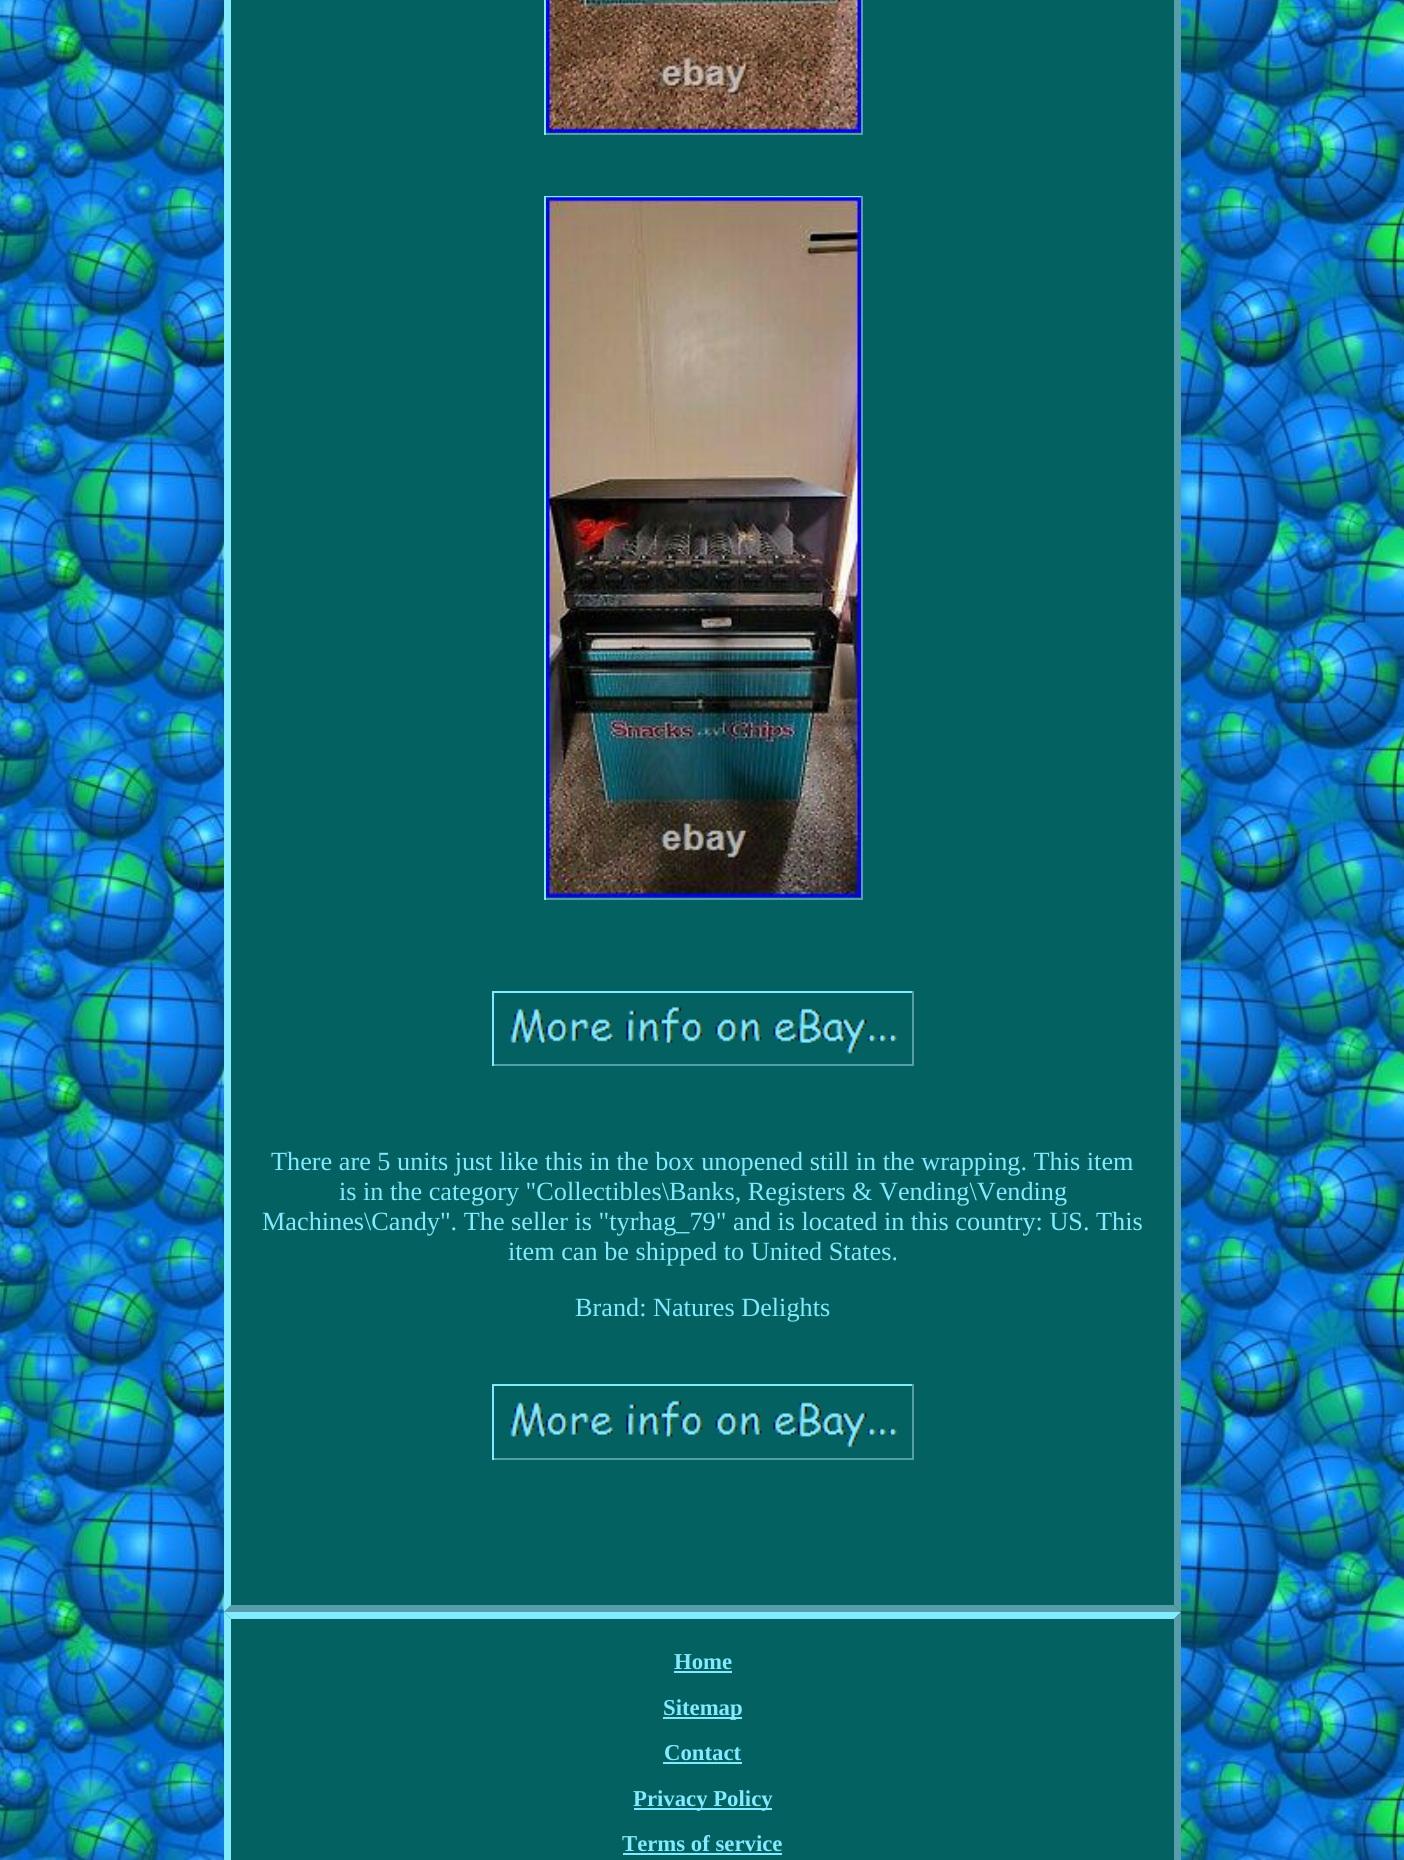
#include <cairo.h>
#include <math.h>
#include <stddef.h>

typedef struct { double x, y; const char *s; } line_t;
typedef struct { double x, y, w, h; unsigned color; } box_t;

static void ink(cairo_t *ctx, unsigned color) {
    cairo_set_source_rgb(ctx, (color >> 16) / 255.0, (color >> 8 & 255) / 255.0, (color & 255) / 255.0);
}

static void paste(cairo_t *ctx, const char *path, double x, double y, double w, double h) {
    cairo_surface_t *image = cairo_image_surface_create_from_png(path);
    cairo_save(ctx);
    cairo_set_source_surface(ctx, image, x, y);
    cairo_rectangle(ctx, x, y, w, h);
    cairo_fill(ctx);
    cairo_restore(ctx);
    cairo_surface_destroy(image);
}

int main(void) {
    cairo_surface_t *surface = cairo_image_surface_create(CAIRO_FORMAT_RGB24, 1404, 1860);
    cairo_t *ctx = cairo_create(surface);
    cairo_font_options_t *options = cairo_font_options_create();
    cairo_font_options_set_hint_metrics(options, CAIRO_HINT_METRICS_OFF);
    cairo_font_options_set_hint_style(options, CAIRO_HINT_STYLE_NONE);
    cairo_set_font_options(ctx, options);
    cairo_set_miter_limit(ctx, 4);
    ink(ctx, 0xFFFFFF);
    cairo_paint(ctx);
    paste(ctx, "media/1.png", 0, 0, 1404, 1860);
    ink(ctx, 0x036161);
    cairo_rectangle(ctx, 224, 0, 957, 1860);
    cairo_fill(ctx);
    ink(ctx, 0x579DAA);
    cairo_new_path(ctx);
    cairo_move_to(ctx, 1181, -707);
    cairo_line_to(ctx, 1181, 1612);
    cairo_line_to(ctx, 1174, 1605);
    cairo_line_to(ctx, 1174, -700);
    cairo_close_path(ctx);
    cairo_fill(ctx);
    cairo_new_path(ctx);
    cairo_move_to(ctx, 1181, 1612);
    cairo_line_to(ctx, 224, 1612);
    cairo_line_to(ctx, 231, 1605);
    cairo_line_to(ctx, 1174, 1605);
    cairo_close_path(ctx);
    cairo_fill(ctx);
    ink(ctx, 0x83EBFF);
    cairo_new_path(ctx);
    cairo_move_to(ctx, 224, 1612);
    cairo_line_to(ctx, 224, -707);
    cairo_line_to(ctx, 231, -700);
    cairo_line_to(ctx, 231, 1605);
    cairo_close_path(ctx);
    cairo_fill(ctx);
    {
        static const box_t items[] = {
            {861, 0, 2, 135, 0x579DAA},
            {544, 133, 319, 2, 0x579DAA},
            {544, 0, 2, 135, 0x83EBFF},
        };
        for (size_t i = 0; i < sizeof items / sizeof *items; i++) {
            ink(ctx, items[i].color);
            cairo_rectangle(ctx, items[i].x, items[i].y, items[i].w, items[i].h);
            cairo_fill(ctx);
        }
    }
    paste(ctx, "media/2.png", 546, 0, 315, 133);
    {
        static const box_t items[] = {
            {544, 196, 319, 2, 0x83EBFF},
            {861, 196, 2, 704, 0x579DAA},
            {544, 898, 319, 2, 0x579DAA},
            {544, 196, 2, 704, 0x83EBFF},
        };
        for (size_t i = 0; i < sizeof items / sizeof *items; i++) {
            ink(ctx, items[i].color);
            cairo_rectangle(ctx, items[i].x, items[i].y, items[i].w, items[i].h);
            cairo_fill(ctx);
        }
    }
    paste(ctx, "media/3.png", 546, 197, 315, 701);
    {
        static const box_t items[] = {
            {492, 991, 422, 2, 0x83EBFF},
            {912, 991, 2, 75, 0x579DAA},
            {492, 1064, 422, 2, 0x579DAA},
            {492, 991, 2, 75, 0x83EBFF},
        };
        for (size_t i = 0; i < sizeof items / sizeof *items; i++) {
            ink(ctx, items[i].color);
            cairo_rectangle(ctx, items[i].x, items[i].y, items[i].w, items[i].h);
            cairo_fill(ctx);
        }
    }
    paste(ctx, "media/4.png", 510, 1007, 387, 47);
    cairo_select_font_face(ctx, "Liberation Serif", CAIRO_FONT_SLANT_NORMAL, CAIRO_FONT_WEIGHT_NORMAL);
    cairo_set_font_size(ctx, 26.25);
    {
        static const line_t items[] = {
            {271, 1170, "There are 5 units just like this in the box unopened still in the wrapping. This item"},
            {339, 1200, "is in the category \"Collectibles\\Banks, Registers & Vending\\Vending"},
            {262, 1230, "Machines\\Candy\". The seller is \"tyrhag_79\" and is located in this country: US. This"},
            {508, 1260, "item can be shipped to United States."},
            {575, 1316, "Brand: Natures Delights"},
        };
        for (size_t i = 0; i < sizeof items / sizeof *items; i++) {
            cairo_move_to(ctx, items[i].x, items[i].y);
            cairo_show_text(ctx, items[i].s);
        }
    }
    {
        static const box_t items[] = {
            {492, 1384, 422, 2, 0x83EBFF},
            {912, 1384, 2, 76, 0x579DAA},
            {492, 1458, 422, 2, 0x579DAA},
            {492, 1384, 2, 76, 0x83EBFF},
        };
        for (size_t i = 0; i < sizeof items / sizeof *items; i++) {
            ink(ctx, items[i].color);
            cairo_rectangle(ctx, items[i].x, items[i].y, items[i].w, items[i].h);
            cairo_fill(ctx);
        }
    }
    paste(ctx, "media/5.png", 510, 1400, 387, 48);
    cairo_new_path(ctx);
    cairo_move_to(ctx, 224, 1612);
    cairo_line_to(ctx, 1181, 1612);
    cairo_line_to(ctx, 1174, 1619);
    cairo_line_to(ctx, 231, 1619);
    cairo_close_path(ctx);
    cairo_fill(ctx);
    ink(ctx, 0x579DAA);
    cairo_new_path(ctx);
    cairo_move_to(ctx, 1181, 1612);
    cairo_line_to(ctx, 1181, 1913);
    cairo_line_to(ctx, 1174, 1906);
    cairo_line_to(ctx, 1174, 1619);
    cairo_close_path(ctx);
    cairo_fill(ctx);
    ink(ctx, 0x83EBFF);
    cairo_new_path(ctx);
    cairo_move_to(ctx, 224, 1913);
    cairo_line_to(ctx, 224, 1612);
    cairo_line_to(ctx, 231, 1619);
    cairo_line_to(ctx, 231, 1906);
    cairo_close_path(ctx);
    cairo_fill(ctx);
    cairo_select_font_face(ctx, "Liberation Serif", CAIRO_FONT_SLANT_NORMAL, CAIRO_FONT_WEIGHT_BOLD);
    cairo_set_font_size(ctx, 22.75);
    cairo_move_to(ctx, 674, 1669);
    cairo_show_text(ctx, "Home");
    cairo_rectangle(ctx, 674, 1671, 58, 2);
    cairo_fill(ctx);
    cairo_rectangle(ctx, 663, 1717, 79, 2);
    cairo_fill(ctx);
    cairo_move_to(ctx, 663, 1715);
    cairo_show_text(ctx, "Sitemap");
    cairo_move_to(ctx, 664, 1760);
    cairo_show_text(ctx, "Contact");
    cairo_rectangle(ctx, 663, 1762, 79, 2);
    cairo_fill(ctx);
    cairo_rectangle(ctx, 634, 1808, 138, 2);
    cairo_fill(ctx);
    cairo_move_to(ctx, 633, 1806);
    cairo_show_text(ctx, "Privacy Policy");
    cairo_move_to(ctx, 622, 1851);
    cairo_show_text(ctx, "Terms of service");
    cairo_rectangle(ctx, 623, 1853, 159, 2);
    cairo_fill(ctx);
    cairo_surface_write_to_png(surface, "image.png");
    cairo_font_options_destroy(options);
    cairo_destroy(ctx);
    cairo_surface_destroy(surface);
    return 0;
}
